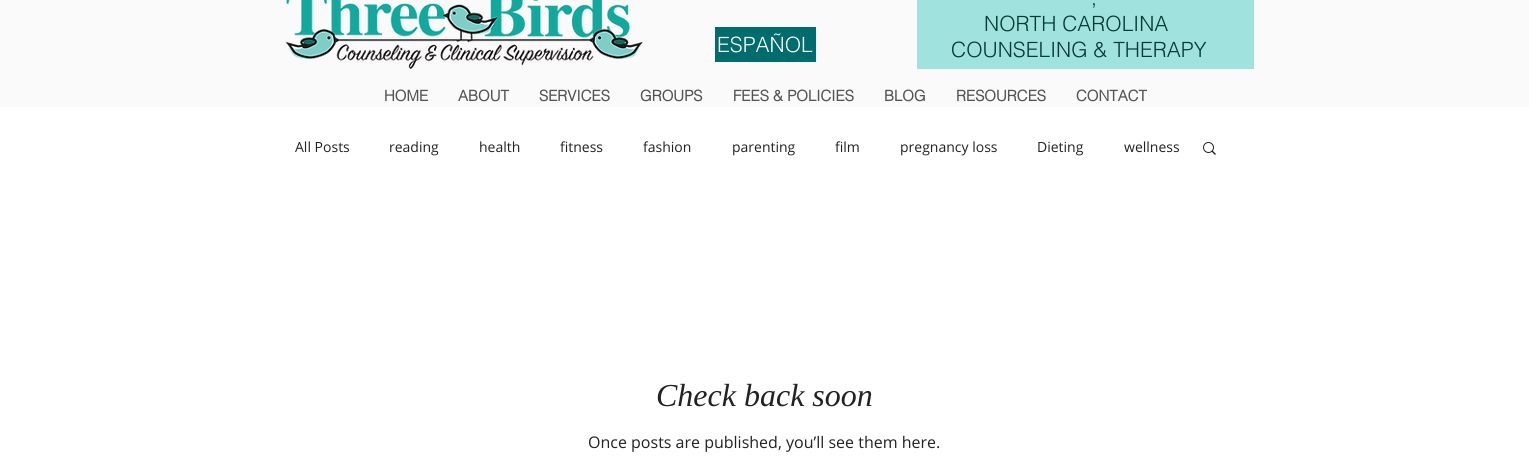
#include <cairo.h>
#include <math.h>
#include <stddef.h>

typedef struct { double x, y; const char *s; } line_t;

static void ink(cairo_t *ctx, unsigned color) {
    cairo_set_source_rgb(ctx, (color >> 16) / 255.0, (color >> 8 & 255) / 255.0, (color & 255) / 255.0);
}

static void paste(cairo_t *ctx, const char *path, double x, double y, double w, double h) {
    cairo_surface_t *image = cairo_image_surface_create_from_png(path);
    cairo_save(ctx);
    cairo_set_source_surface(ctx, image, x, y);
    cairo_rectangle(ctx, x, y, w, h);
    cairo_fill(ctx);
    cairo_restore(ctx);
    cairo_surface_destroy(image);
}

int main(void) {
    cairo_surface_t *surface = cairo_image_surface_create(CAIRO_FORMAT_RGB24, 1529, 472);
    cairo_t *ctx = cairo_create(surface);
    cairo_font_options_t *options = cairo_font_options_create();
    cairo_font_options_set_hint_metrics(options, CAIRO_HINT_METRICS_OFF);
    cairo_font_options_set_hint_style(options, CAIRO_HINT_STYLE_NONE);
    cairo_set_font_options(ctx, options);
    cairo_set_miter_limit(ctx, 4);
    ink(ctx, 0xFFFFFF);
    cairo_paint(ctx);
    ink(ctx, 0xFAFAFA);
    cairo_rectangle(ctx, 0, 0, 1529, 107);
    cairo_fill(ctx);
    paste(ctx, "media/1.png", 285, 0, 358, 70);
    ink(ctx, 0x9FE2DE);
    cairo_rectangle(ctx, 917, 0, 337, 69);
    cairo_fill(ctx);
    ink(ctx, 0x006C6D);
    cairo_rectangle(ctx, 715, 27, 101, 35);
    cairo_fill(ctx);
    cairo_select_font_face(ctx, "helvetica Light", CAIRO_FONT_SLANT_NORMAL, CAIRO_FONT_WEIGHT_NORMAL);
    cairo_set_font_size(ctx, 21);
    ink(ctx, 0xFFFFFF);
    cairo_move_to(ctx, 717, 52);
    cairo_show_text(ctx, "ESPAÑOL");
    ink(ctx, 0x063835);
    {
        static const line_t items[] = {
            {1091, 5, ","},
            {984, 31, "NORTH CAROLINA"},
            {951, 57, "COUNSELING & THERAPY"},
        };
        for (size_t i = 0; i < sizeof items / sizeof *items; i++) {
            cairo_move_to(ctx, items[i].x, items[i].y);
            cairo_show_text(ctx, items[i].s);
        }
    }
    cairo_select_font_face(ctx, "helvetica", CAIRO_FONT_SLANT_NORMAL, CAIRO_FONT_WEIGHT_BOLD);
    cairo_set_font_size(ctx, 15);
    ink(ctx, 0x555353);
    {
        static const line_t items[] = {
            {384, 101, "HOME"},
            {458, 101, "ABOUT"},
            {539, 101, "SERVICES"},
            {640, 101, "GROUPS"},
            {733, 101, "FEES & POLICIES"},
            {884, 101, "BLOG"},
            {956, 101, "RESOURCES"},
            {1076, 101, "CONTACT"},
        };
        for (size_t i = 0; i < sizeof items / sizeof *items; i++) {
            cairo_move_to(ctx, items[i].x, items[i].y);
            cairo_show_text(ctx, items[i].s);
        }
    }
    cairo_select_font_face(ctx, "Open Sans", CAIRO_FONT_SLANT_NORMAL, CAIRO_FONT_WEIGHT_NORMAL);
    cairo_set_font_size(ctx, 14);
    ink(ctx, 0x222222);
    {
        static const line_t items[] = {
            {295, 152, "All Posts"},
            {389, 152, "reading"},
            {479, 152, "health"},
            {560, 152, "fitness"},
            {643, 152, "fashion"},
            {732, 152, "parenting"},
            {835, 152, "film"},
            {900, 152, "pregnancy loss"},
            {1037, 152, "Dieting"},
            {1124, 152, "wellness"},
        };
        for (size_t i = 0; i < sizeof items / sizeof *items; i++) {
            cairo_move_to(ctx, items[i].x, items[i].y);
            cairo_show_text(ctx, items[i].s);
        }
    }
    paste(ctx, "media/2.png", 1203, 142, 13, 13);
    cairo_select_font_face(ctx, "Liberation Serif", CAIRO_FONT_SLANT_ITALIC, CAIRO_FONT_WEIGHT_NORMAL);
    cairo_set_font_size(ctx, 32);
    cairo_move_to(ctx, 656, 406);
    cairo_show_text(ctx, "Check back soon");
    cairo_select_font_face(ctx, "Open Sans", CAIRO_FONT_SLANT_NORMAL, CAIRO_FONT_WEIGHT_NORMAL);
    cairo_set_font_size(ctx, 16);
    cairo_move_to(ctx, 588, 448);
    cairo_show_text(ctx, "Once posts are published, you’ll see them here.");
    cairo_surface_write_to_png(surface, "image.png");
    cairo_font_options_destroy(options);
    cairo_destroy(ctx);
    cairo_surface_destroy(surface);
    return 0;
}
